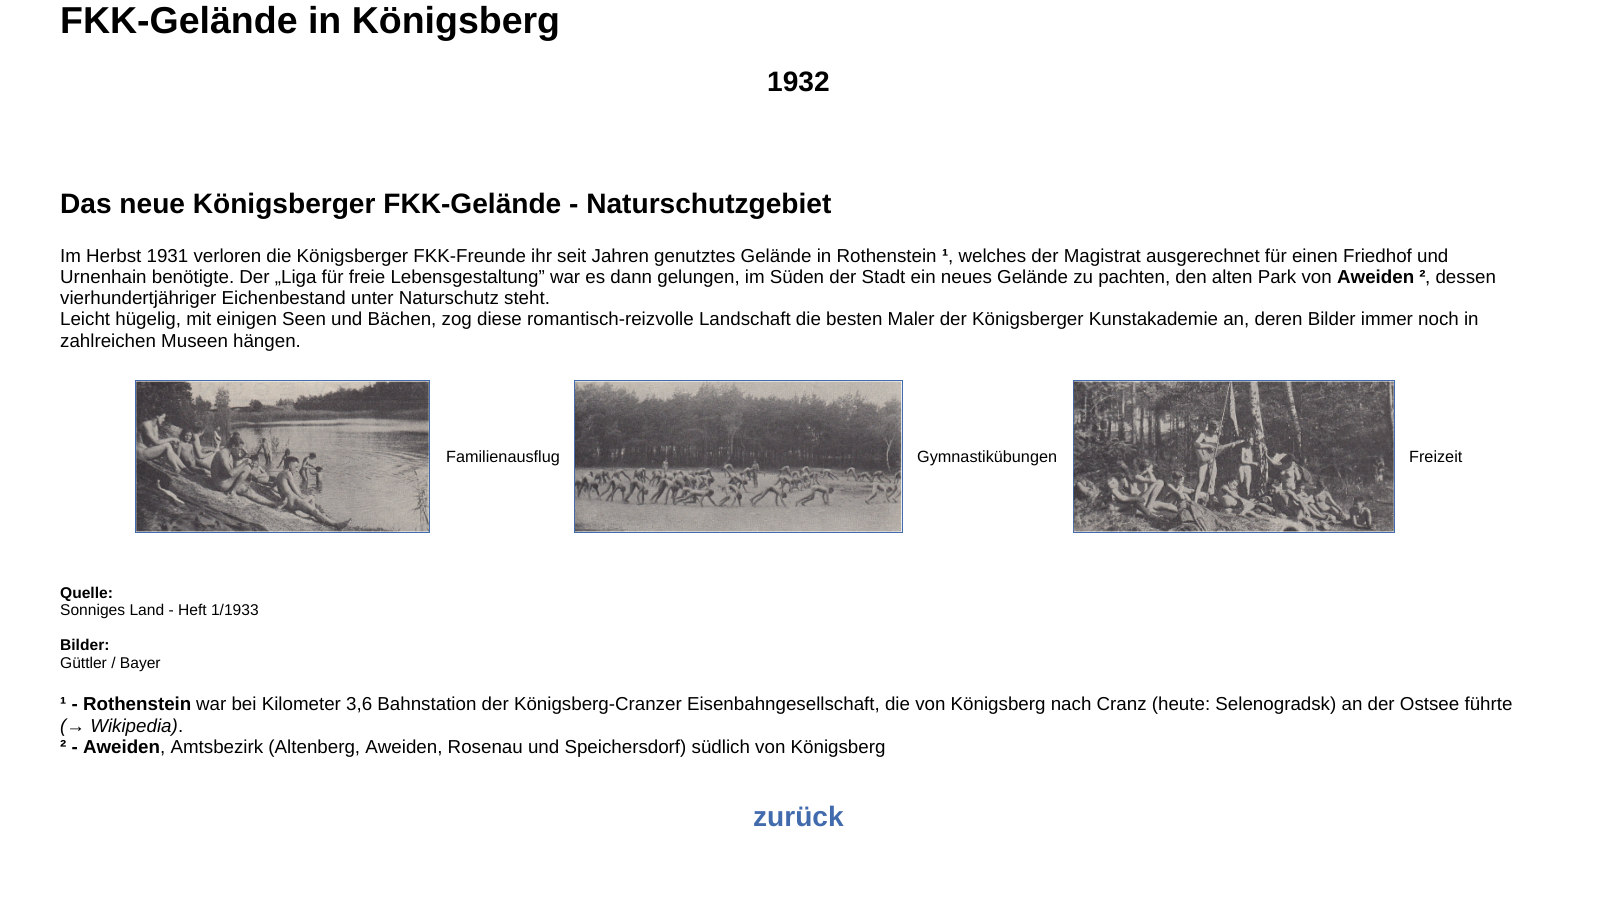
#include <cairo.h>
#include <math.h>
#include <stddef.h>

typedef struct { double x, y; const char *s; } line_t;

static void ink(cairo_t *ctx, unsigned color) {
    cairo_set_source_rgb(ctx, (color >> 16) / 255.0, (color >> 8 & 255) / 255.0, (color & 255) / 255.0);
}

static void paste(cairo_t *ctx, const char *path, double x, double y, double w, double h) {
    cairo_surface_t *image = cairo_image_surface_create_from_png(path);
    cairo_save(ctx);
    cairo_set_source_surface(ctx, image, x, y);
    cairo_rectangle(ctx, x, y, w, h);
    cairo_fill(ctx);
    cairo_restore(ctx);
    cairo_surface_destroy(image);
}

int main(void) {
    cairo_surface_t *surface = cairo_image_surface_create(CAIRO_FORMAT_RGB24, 1597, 897);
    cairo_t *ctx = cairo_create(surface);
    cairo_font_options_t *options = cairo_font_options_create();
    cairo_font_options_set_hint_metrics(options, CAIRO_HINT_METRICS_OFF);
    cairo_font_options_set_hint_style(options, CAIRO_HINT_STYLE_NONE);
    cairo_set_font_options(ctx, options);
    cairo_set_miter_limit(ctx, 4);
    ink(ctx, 0xFFFFFF);
    cairo_paint(ctx);
    cairo_select_font_face(ctx, "Liberation Sans", CAIRO_FONT_SLANT_NORMAL, CAIRO_FONT_WEIGHT_BOLD);
    cairo_set_font_size(ctx, 37.5);
    ink(ctx, 0x000000);
    cairo_move_to(ctx, 60, 33);
    cairo_show_text(ctx, "FKK-Gelände in Königsberg");
    cairo_set_font_size(ctx, 28.1);
    cairo_move_to(ctx, 767, 91);
    cairo_show_text(ctx, "1932");
    cairo_move_to(ctx, 60, 213);
    cairo_show_text(ctx, "Das neue Königsberger FKK-Gelände - Naturschutzgebiet");
    cairo_select_font_face(ctx, "Liberation Sans", CAIRO_FONT_SLANT_NORMAL, CAIRO_FONT_WEIGHT_NORMAL);
    cairo_set_font_size(ctx, 18.75);
    cairo_move_to(ctx, 60, 262);
    cairo_show_text(ctx, "Im Herbst 1931 verloren die Königsberger FKK-Freunde ihr seit Jahren genutztes Gelände in Rothenstein");
    cairo_select_font_face(ctx, "Liberation Sans", CAIRO_FONT_SLANT_NORMAL, CAIRO_FONT_WEIGHT_BOLD);
    cairo_move_to(ctx, 942, 262);
    cairo_show_text(ctx, "¹");
    cairo_select_font_face(ctx, "Liberation Sans", CAIRO_FONT_SLANT_NORMAL, CAIRO_FONT_WEIGHT_NORMAL);
    cairo_move_to(ctx, 948, 262);
    cairo_show_text(ctx, ", welches der Magistrat ausgerechnet für einen Friedhof und");
    cairo_move_to(ctx, 60, 283);
    cairo_show_text(ctx, "Urnenhain benötigte. Der „Liga für freie Lebensgestaltung” war es dann gelungen, im Süden der Stadt ein neues Gelände zu pachten, den alten Park von");
    cairo_select_font_face(ctx, "Liberation Sans", CAIRO_FONT_SLANT_NORMAL, CAIRO_FONT_WEIGHT_BOLD);
    cairo_move_to(ctx, 1337, 283);
    cairo_show_text(ctx, "Aweiden ²");
    cairo_select_font_face(ctx, "Liberation Sans", CAIRO_FONT_SLANT_NORMAL, CAIRO_FONT_WEIGHT_NORMAL);
    {
        static const line_t items[] = {
            {1425, 283, ", dessen"},
            {60, 304, "vierhundertjähriger Eichenbestand unter Naturschutz steht."},
            {60, 325, "Leicht hügelig, mit einigen Seen und Bächen, zog diese romantisch-reizvolle Landschaft die besten Maler der Königsberger Kunstakademie an, deren Bilder immer noch in"},
            {60, 347, "zahlreichen Museen hängen."},
        };
        for (size_t i = 0; i < sizeof items / sizeof *items; i++) {
            cairo_move_to(ctx, items[i].x, items[i].y);
            cairo_show_text(ctx, items[i].s);
        }
    }
    cairo_rectangle(ctx, 135.5, 380.5, 294, 152);
    ink(ctx, 0x426BAE);
    cairo_set_line_width(ctx, 1);
    cairo_stroke(ctx);
    paste(ctx, "media/1.png", 136, 381, 293, 151);
    cairo_set_font_size(ctx, 16.25);
    ink(ctx, 0x000000);
    cairo_move_to(ctx, 446, 462);
    cairo_show_text(ctx, "Familienausflug");
    cairo_rectangle(ctx, 574.5, 380.5, 328, 152);
    ink(ctx, 0x426BAE);
    cairo_stroke(ctx);
    paste(ctx, "media/2.png", 575, 381, 327, 151);
    ink(ctx, 0x000000);
    cairo_move_to(ctx, 917, 462);
    cairo_show_text(ctx, "Gymnastikübungen");
    cairo_rectangle(ctx, 1073.5, 380.5, 321, 152);
    ink(ctx, 0x426BAE);
    cairo_stroke(ctx);
    paste(ctx, "media/3.png", 1073, 381, 321, 151);
    ink(ctx, 0x000000);
    cairo_move_to(ctx, 1409, 462);
    cairo_show_text(ctx, "Freizeit");
    cairo_select_font_face(ctx, "Liberation Sans", CAIRO_FONT_SLANT_NORMAL, CAIRO_FONT_WEIGHT_BOLD);
    cairo_set_font_size(ctx, 15.6);
    cairo_move_to(ctx, 60, 598);
    cairo_show_text(ctx, "Quelle:");
    cairo_select_font_face(ctx, "Liberation Sans", CAIRO_FONT_SLANT_NORMAL, CAIRO_FONT_WEIGHT_NORMAL);
    cairo_move_to(ctx, 60, 615);
    cairo_show_text(ctx, "Sonniges Land - Heft 1/1933");
    cairo_select_font_face(ctx, "Liberation Sans", CAIRO_FONT_SLANT_NORMAL, CAIRO_FONT_WEIGHT_BOLD);
    cairo_move_to(ctx, 60, 650);
    cairo_show_text(ctx, "Bilder:");
    cairo_select_font_face(ctx, "Liberation Sans", CAIRO_FONT_SLANT_NORMAL, CAIRO_FONT_WEIGHT_NORMAL);
    cairo_move_to(ctx, 60, 668);
    cairo_show_text(ctx, "Güttler / Bayer");
    cairo_select_font_face(ctx, "Liberation Sans", CAIRO_FONT_SLANT_NORMAL, CAIRO_FONT_WEIGHT_BOLD);
    cairo_set_font_size(ctx, 18.75);
    cairo_move_to(ctx, 60, 710);
    cairo_show_text(ctx, "¹ - Rothenstein");
    cairo_select_font_face(ctx, "Liberation Sans", CAIRO_FONT_SLANT_NORMAL, CAIRO_FONT_WEIGHT_NORMAL);
    cairo_move_to(ctx, 196, 710);
    cairo_show_text(ctx, "war bei Kilometer 3,6 Bahnstation der Königsberg-Cranzer Eisenbahngesellschaft, die von Königsberg nach Cranz (heute: Selenogradsk) an der Ostsee führte");
    cairo_select_font_face(ctx, "Liberation Sans", CAIRO_FONT_SLANT_ITALIC, CAIRO_FONT_WEIGHT_NORMAL);
    cairo_move_to(ctx, 60, 732);
    cairo_show_text(ctx, "(→ Wikipedia)");
    cairo_select_font_face(ctx, "Liberation Sans", CAIRO_FONT_SLANT_NORMAL, CAIRO_FONT_WEIGHT_NORMAL);
    cairo_move_to(ctx, 178, 732);
    cairo_show_text(ctx, ".");
    cairo_select_font_face(ctx, "Liberation Sans", CAIRO_FONT_SLANT_NORMAL, CAIRO_FONT_WEIGHT_BOLD);
    cairo_move_to(ctx, 60, 753);
    cairo_show_text(ctx, "² - Aweiden");
    cairo_select_font_face(ctx, "Liberation Sans", CAIRO_FONT_SLANT_NORMAL, CAIRO_FONT_WEIGHT_NORMAL);
    cairo_move_to(ctx, 160, 753);
    cairo_show_text(ctx, ", Amtsbezirk (Altenberg, Aweiden, Rosenau und Speichersdorf) südlich von Königsberg");
    cairo_select_font_face(ctx, "Liberation Sans", CAIRO_FONT_SLANT_NORMAL, CAIRO_FONT_WEIGHT_BOLD);
    cairo_set_font_size(ctx, 28.1);
    ink(ctx, 0x426BAE);
    cairo_move_to(ctx, 753, 826);
    cairo_show_text(ctx, "zurück");
    cairo_surface_write_to_png(surface, "image.png");
    cairo_font_options_destroy(options);
    cairo_destroy(ctx);
    cairo_surface_destroy(surface);
    return 0;
}
